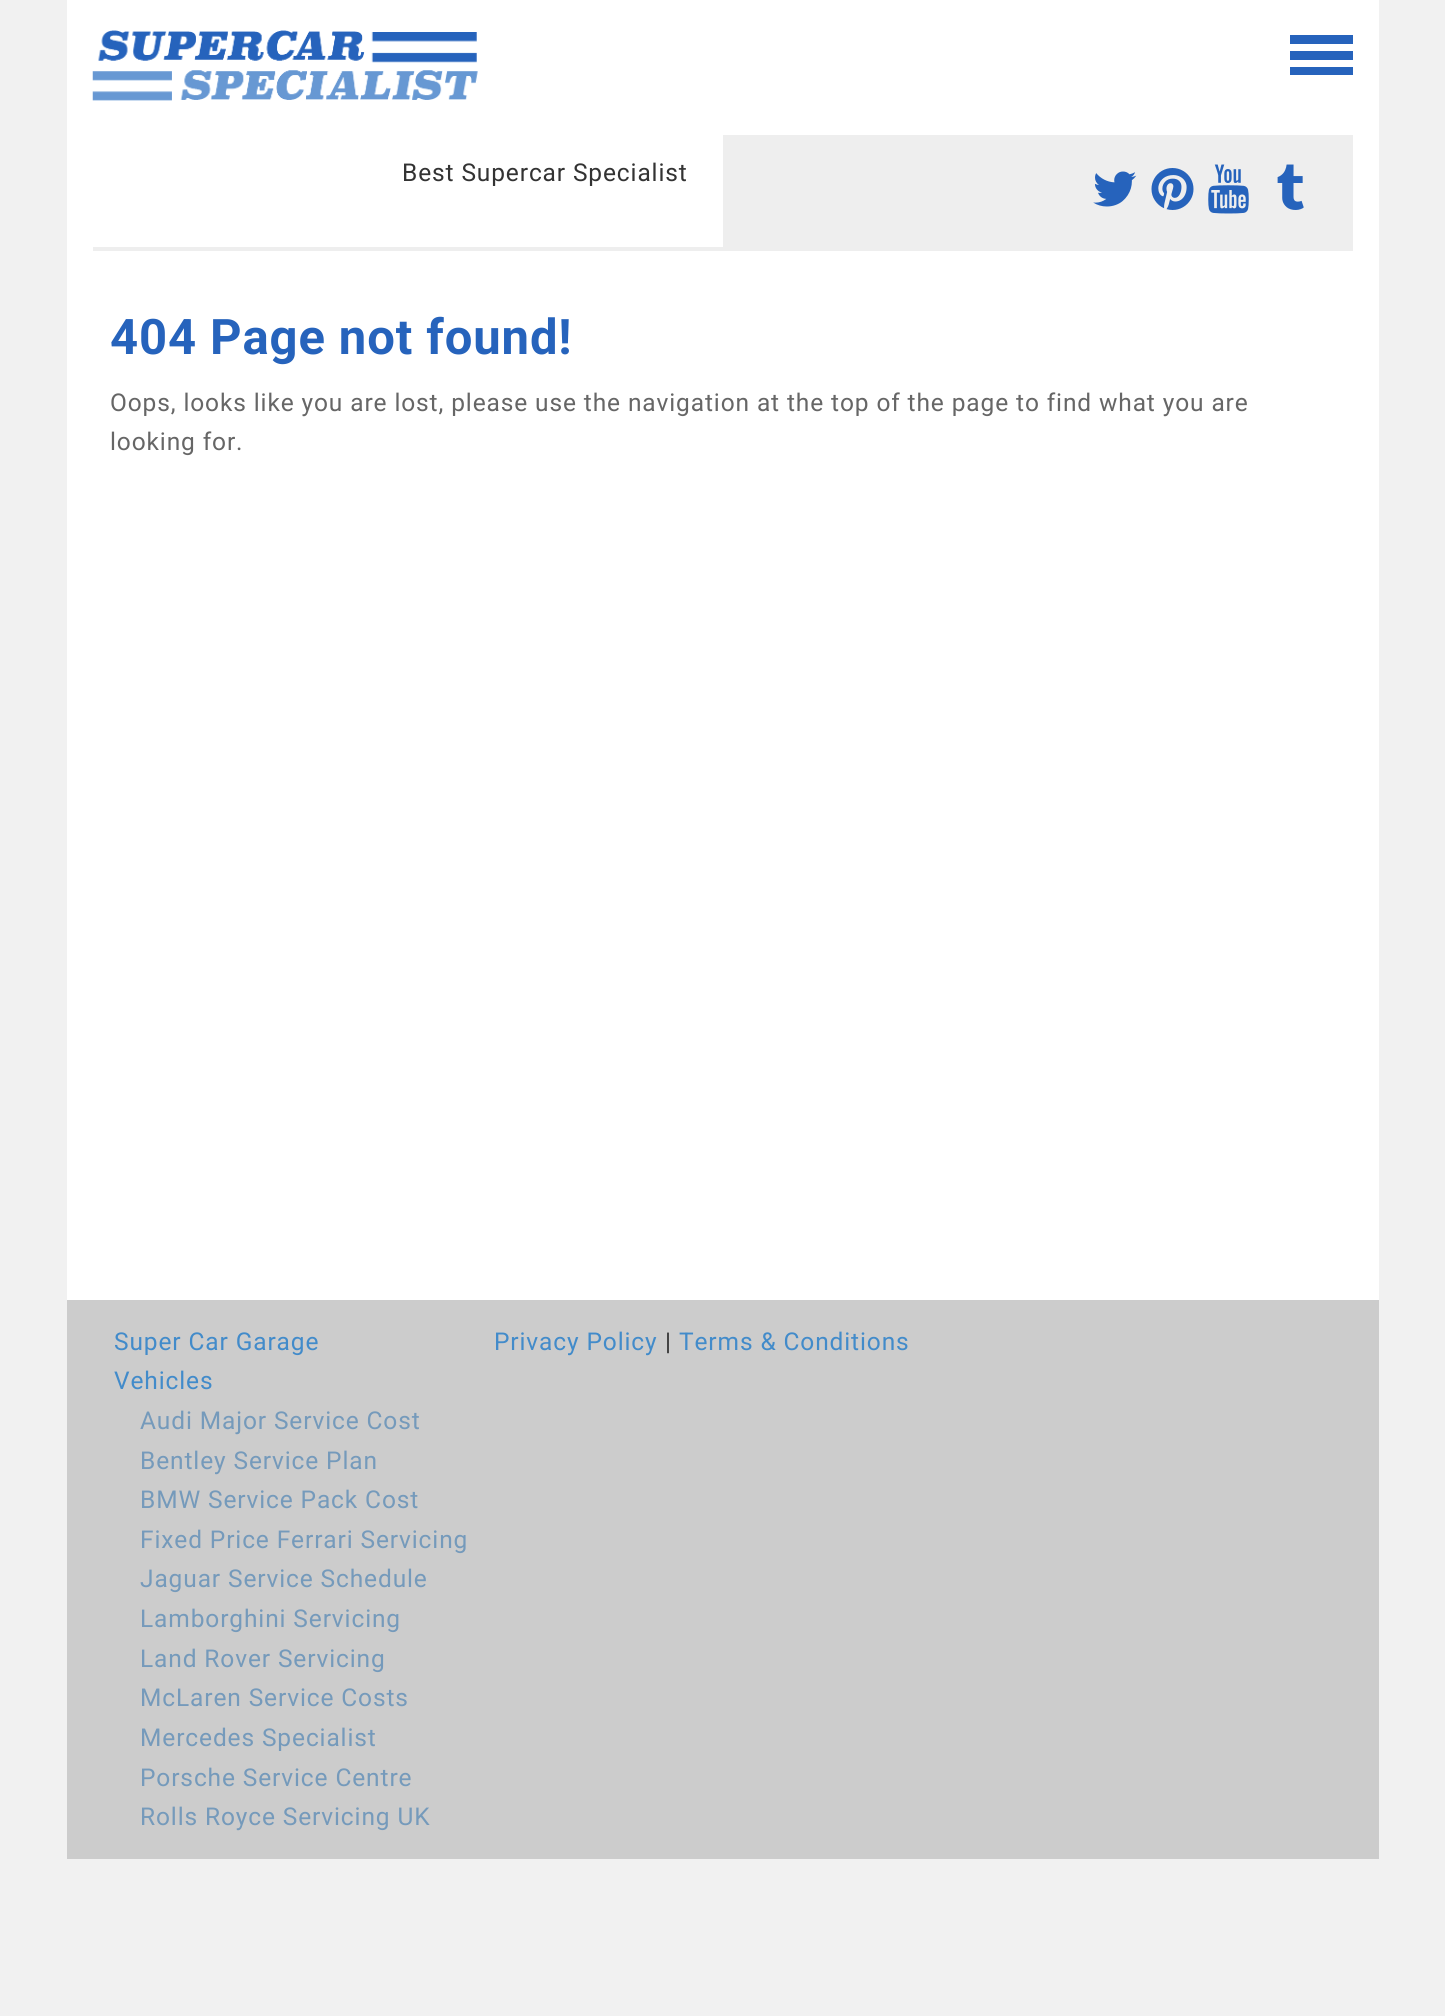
#include <cairo.h>
#include <math.h>
#include <stddef.h>

typedef struct { double x, y; const char *s; } line_t;
typedef struct { double x, y, w, h; unsigned color; } box_t;

static void ink(cairo_t *ctx, unsigned color) {
    cairo_set_source_rgb(ctx, (color >> 16) / 255.0, (color >> 8 & 255) / 255.0, (color & 255) / 255.0);
}

static void write_spaced(cairo_t *ctx, double x, double y, const char *s, double letter, double word) {
    cairo_move_to(ctx, x, y);
    while (*s) {
        char ch[5] = {0};
        int n = 0;
        do ch[n++] = *s++; while ((*s & 0xC0) == 0x80);
        cairo_show_text(ctx, ch);
        cairo_rel_move_to(ctx, letter + word * (*ch == ' '), 0);
    }
}

static void paste(cairo_t *ctx, const char *path, double x, double y, double w, double h) {
    cairo_surface_t *image = cairo_image_surface_create_from_png(path);
    cairo_save(ctx);
    cairo_set_source_surface(ctx, image, x, y);
    cairo_rectangle(ctx, x, y, w, h);
    cairo_fill(ctx);
    cairo_restore(ctx);
    cairo_surface_destroy(image);
}

int main(void) {
    cairo_surface_t *surface = cairo_image_surface_create(CAIRO_FORMAT_RGB24, 1445, 2016);
    cairo_t *ctx = cairo_create(surface);
    cairo_font_options_t *options = cairo_font_options_create();
    cairo_font_options_set_hint_metrics(options, CAIRO_HINT_METRICS_OFF);
    cairo_font_options_set_hint_style(options, CAIRO_HINT_STYLE_NONE);
    cairo_set_font_options(ctx, options);
    cairo_set_miter_limit(ctx, 4);
    ink(ctx, 0xF1F1F1);
    cairo_paint(ctx);
    ink(ctx, 0xFFFFFF);
    cairo_rectangle(ctx, 67, 0, 1312, 1300);
    cairo_fill(ctx);
    paste(ctx, "media/1.png", 92, 30, 386, 71);
    {
        static const box_t items[] = {
            {93, 247, 1260, 4, 0xEEEEEE},
            {1290, 35, 63, 9, 0x2663BC},
            {1290, 51, 63, 9, 0x2663BC},
            {1290, 67, 63, 8, 0x2663BC},
        };
        for (size_t i = 0; i < sizeof items / sizeof *items; i++) {
            ink(ctx, items[i].color);
            cairo_rectangle(ctx, items[i].x, items[i].y, items[i].w, items[i].h);
            cairo_fill(ctx);
        }
    }
    cairo_select_font_face(ctx, "Roboto", CAIRO_FONT_SLANT_NORMAL, CAIRO_FONT_WEIGHT_NORMAL);
    cairo_set_font_size(ctx, 24.5);
    ink(ctx, 0x333333);
    write_spaced(ctx, 402, 181, "Best Supercar Specialist", 0.88, 0);
    ink(ctx, 0xEEEEEE);
    cairo_rectangle(ctx, 723, 135, 630, 112);
    cairo_fill(ctx);
    paste(ctx, "media/2.png", 1093, 171, 44, 36);
    paste(ctx, "media/3.png", 1151, 168, 43, 42);
    paste(ctx, "media/4.png", 1208, 164, 41, 50);
    paste(ctx, "media/5.png", 1277, 164, 27, 46);
    cairo_select_font_face(ctx, "Roboto", CAIRO_FONT_SLANT_NORMAL, CAIRO_FONT_WEIGHT_BOLD);
    cairo_set_font_size(ctx, 49);
    ink(ctx, 0x2663BC);
    write_spaced(ctx, 110, 354, "404 Page not found!", 0.88, 0);
    cairo_select_font_face(ctx, "Roboto", CAIRO_FONT_SLANT_NORMAL, CAIRO_FONT_WEIGHT_NORMAL);
    cairo_set_font_size(ctx, 24.5);
    ink(ctx, 0x666666);
    write_spaced(ctx, 110, 411, "Oops, looks like you are lost, please use the navigation at the top of the page to find what you are", 0.88, 0);
    write_spaced(ctx, 110, 450, "looking for.", 0.88, 0);
    ink(ctx, 0xCCCCCC);
    cairo_rectangle(ctx, 67, 1300, 1312, 559);
    cairo_fill(ctx);
    ink(ctx, 0x428BCA);
    write_spaced(ctx, 114, 1350, "Super Car Garage", 0.88, 0);
    write_spaced(ctx, 114, 1389, "Vehicles", 0.88, 0);
    ink(ctx, 0x759ABB);
    {
        static const line_t items[] = {
            {140, 1429, "Audi Major Service Cost"},
            {140, 1469, "Bentley Service Plan"},
            {140, 1508, "BMW Service Pack Cost"},
            {140, 1548, "Fixed Price Ferrari Servicing"},
            {140, 1587, "Jaguar Service Schedule"},
            {140, 1627, "Lamborghini Servicing"},
            {140, 1667, "Land Rover Servicing"},
            {140, 1706, "McLaren Service Costs"},
            {140, 1746, "Mercedes Specialist"},
            {140, 1786, "Porsche Service Centre"},
            {140, 1825, "Rolls Royce Servicing UK"},
        };
        for (size_t i = 0; i < sizeof items / sizeof *items; i++) {
            write_spaced(ctx, items[i].x, items[i].y, items[i].s, 0.88, 0);
        }
    }
    ink(ctx, 0x428BCA);
    write_spaced(ctx, 494, 1350, "Privacy Policy", 0.88, 0);
    ink(ctx, 0x333333);
    write_spaced(ctx, 665, 1350, "|", 0.88, 0);
    ink(ctx, 0x428BCA);
    write_spaced(ctx, 679, 1350, "Terms & Conditions", 0.88, 0);
    cairo_surface_write_to_png(surface, "image.png");
    cairo_font_options_destroy(options);
    cairo_destroy(ctx);
    cairo_surface_destroy(surface);
    return 0;
}
